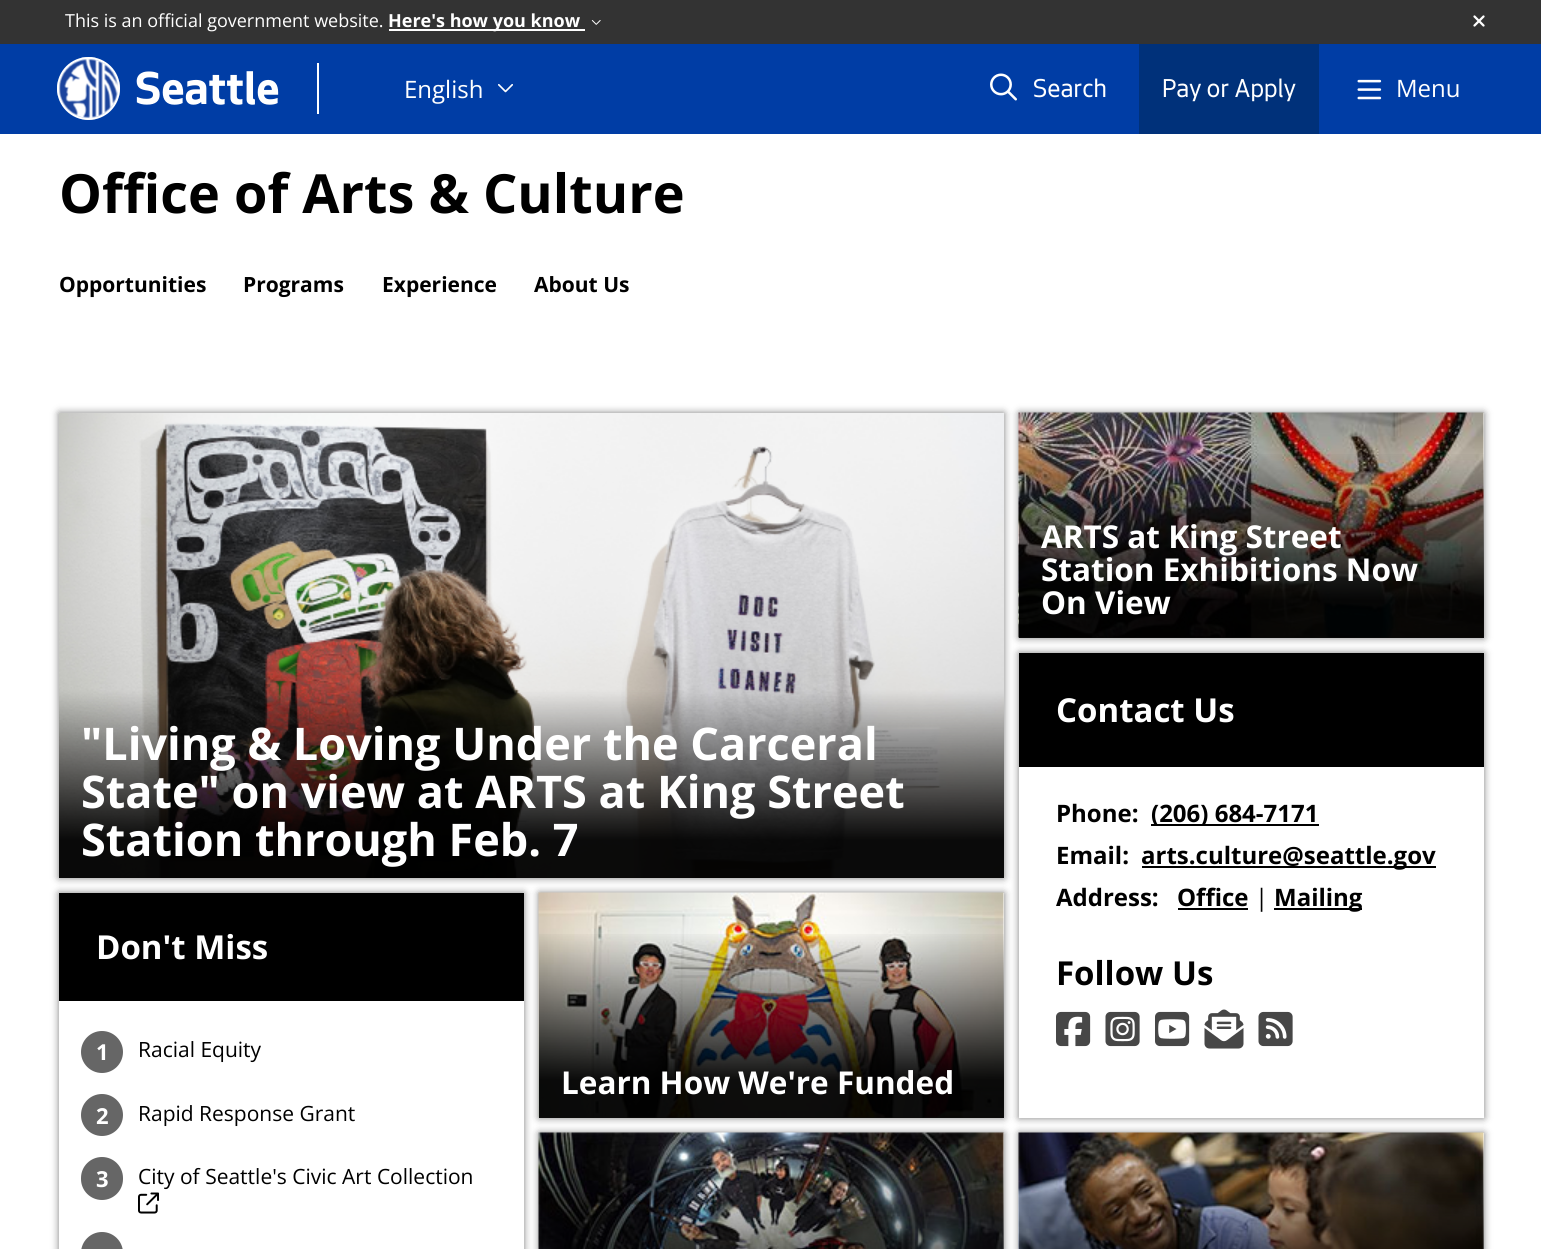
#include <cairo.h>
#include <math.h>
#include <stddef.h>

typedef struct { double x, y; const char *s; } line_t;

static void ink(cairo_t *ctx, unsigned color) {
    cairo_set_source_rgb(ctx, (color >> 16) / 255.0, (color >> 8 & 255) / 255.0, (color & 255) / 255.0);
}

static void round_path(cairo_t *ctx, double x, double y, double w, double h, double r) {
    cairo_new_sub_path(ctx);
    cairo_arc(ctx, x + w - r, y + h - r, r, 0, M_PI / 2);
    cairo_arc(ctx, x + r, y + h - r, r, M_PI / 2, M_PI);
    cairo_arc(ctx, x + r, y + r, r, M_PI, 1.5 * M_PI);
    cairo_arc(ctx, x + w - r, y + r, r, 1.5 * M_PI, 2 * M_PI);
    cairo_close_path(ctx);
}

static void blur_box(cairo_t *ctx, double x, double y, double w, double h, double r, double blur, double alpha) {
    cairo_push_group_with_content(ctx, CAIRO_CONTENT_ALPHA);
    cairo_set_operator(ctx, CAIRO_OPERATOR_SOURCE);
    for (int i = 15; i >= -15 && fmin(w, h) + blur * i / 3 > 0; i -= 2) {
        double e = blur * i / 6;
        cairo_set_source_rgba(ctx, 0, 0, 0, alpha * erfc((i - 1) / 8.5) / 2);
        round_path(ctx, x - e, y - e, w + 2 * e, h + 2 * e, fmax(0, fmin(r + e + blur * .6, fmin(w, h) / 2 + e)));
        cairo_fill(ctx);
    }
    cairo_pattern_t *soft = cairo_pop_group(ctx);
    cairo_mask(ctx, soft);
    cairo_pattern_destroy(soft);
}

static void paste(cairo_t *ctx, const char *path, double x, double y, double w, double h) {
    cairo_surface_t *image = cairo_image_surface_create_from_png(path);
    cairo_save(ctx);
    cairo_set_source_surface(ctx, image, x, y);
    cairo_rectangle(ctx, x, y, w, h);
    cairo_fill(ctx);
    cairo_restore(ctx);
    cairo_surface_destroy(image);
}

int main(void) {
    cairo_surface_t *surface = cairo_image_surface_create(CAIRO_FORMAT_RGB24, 1541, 1249);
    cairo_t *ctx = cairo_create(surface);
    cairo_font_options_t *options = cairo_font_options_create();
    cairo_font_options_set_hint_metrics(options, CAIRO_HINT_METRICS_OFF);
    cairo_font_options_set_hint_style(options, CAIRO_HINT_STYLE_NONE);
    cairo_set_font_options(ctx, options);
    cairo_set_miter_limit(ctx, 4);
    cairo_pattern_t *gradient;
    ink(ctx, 0xFFFFFF);
    cairo_paint(ctx);
    ink(ctx, 0x003DA5);
    cairo_rectangle(ctx, 0, 44, 1541, 90);
    cairo_fill(ctx);
    ink(ctx, 0x333333);
    cairo_rectangle(ctx, 0, 0, 1541, 44);
    cairo_fill(ctx);
    cairo_select_font_face(ctx, "Open Sans", CAIRO_FONT_SLANT_NORMAL, CAIRO_FONT_WEIGHT_NORMAL);
    cairo_set_font_size(ctx, 18);
    ink(ctx, 0xFFFFFF);
    cairo_move_to(ctx, 65, 27);
    cairo_show_text(ctx, "This is an official government website.");
    cairo_rectangle(ctx, 389, 29, 196, 2);
    cairo_fill(ctx);
    cairo_select_font_face(ctx, "Open Sans", CAIRO_FONT_SLANT_NORMAL, CAIRO_FONT_WEIGHT_BOLD);
    cairo_move_to(ctx, 388, 27);
    cairo_show_text(ctx, "Here's how you know");
    paste(ctx, "media/1.png", 591, 20, 10, 5);
    paste(ctx, "media/2.png", 1473, 15, 12, 12);
    paste(ctx, "media/3.png", 57, 57, 63, 63);
    cairo_arc(ctx, 88.5, 88.5, 30.5, 0, 2 * M_PI);
    cairo_stroke(ctx);
    cairo_select_font_face(ctx, "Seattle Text", CAIRO_FONT_SLANT_NORMAL, CAIRO_FONT_WEIGHT_BOLD);
    cairo_set_font_size(ctx, 48);
    cairo_move_to(ctx, 135, 104);
    cairo_show_text(ctx, "Seattle");
    cairo_rectangle(ctx, 317, 63, 2, 51);
    cairo_fill(ctx);
    cairo_select_font_face(ctx, "Open Sans", CAIRO_FONT_SLANT_NORMAL, CAIRO_FONT_WEIGHT_NORMAL);
    cairo_set_font_size(ctx, 24);
    cairo_move_to(ctx, 404, 98);
    cairo_show_text(ctx, "English");
    paste(ctx, "media/4.png", 498, 84, 15, 9);
    paste(ctx, "media/5.png", 990, 73, 27, 28);
    cairo_select_font_face(ctx, "Seattle Text", CAIRO_FONT_SLANT_NORMAL, CAIRO_FONT_WEIGHT_NORMAL);
    cairo_set_font_size(ctx, 27);
    cairo_move_to(ctx, 1033, 97);
    cairo_show_text(ctx, "Search");
    ink(ctx, 0x00317A);
    cairo_rectangle(ctx, 1139, 44, 180, 90);
    cairo_fill(ctx);
    ink(ctx, 0xFFFFFF);
    cairo_move_to(ctx, 1162, 97);
    cairo_show_text(ctx, "Pay or Apply");
    paste(ctx, "media/6.png", 1357, 79, 25, 21);
    cairo_select_font_face(ctx, "Open Sans", CAIRO_FONT_SLANT_NORMAL, CAIRO_FONT_WEIGHT_NORMAL);
    cairo_set_font_size(ctx, 24);
    cairo_move_to(ctx, 1396, 97);
    cairo_show_text(ctx, "Menu");
    cairo_select_font_face(ctx, "Open Sans", CAIRO_FONT_SLANT_NORMAL, CAIRO_FONT_WEIGHT_BOLD);
    cairo_set_font_size(ctx, 54);
    ink(ctx, 0x000000);
    cairo_move_to(ctx, 59, 213);
    cairo_show_text(ctx, "Office of Arts & Culture");
    cairo_set_font_size(ctx, 21);
    {
        static const line_t items[] = {
            {59, 292, "Opportunities"},
            {243, 292, "Programs"},
            {382, 292, "Experience"},
            {534, 292, "About Us"},
        };
        for (size_t i = 0; i < sizeof items / sizeof *items; i++) {
            cairo_move_to(ctx, items[i].x, items[i].y);
            cairo_show_text(ctx, items[i].s);
        }
    }
    ink(ctx, 0x000000);
    blur_box(ctx, 1019, 413, 465, 225, 0, 4, 0.5);
    ink(ctx, 0xFFFFFF);
    cairo_rectangle(ctx, 1019, 413, 465, 225);
    cairo_fill(ctx);
    paste(ctx, "media/7.png", 1018, 412, 466, 226);
    gradient = cairo_pattern_create_linear(1251, 450, 1251, 638);
    cairo_pattern_add_color_stop_rgba(gradient, 0, 0, 0, 0, 0);
    cairo_pattern_add_color_stop_rgba(gradient, 0.01, 0, 0, 0, 0.01);
    cairo_pattern_add_color_stop_rgba(gradient, 0.8, 0, 0, 0, 0.95);
    cairo_set_source(ctx, gradient);
    cairo_pattern_destroy(gradient);
    cairo_rectangle(ctx, 1019, 454, 465, 184);
    cairo_fill(ctx);
    cairo_set_font_size(ctx, 31.5);
    ink(ctx, 0xFFFFFF);
    {
        static const line_t items[] = {
            {1041, 548, "ARTS at King Street"},
            {1041, 581, "Station Exhibitions Now"},
            {1041, 614, "On View"},
        };
        for (size_t i = 0; i < sizeof items / sizeof *items; i++) {
            cairo_move_to(ctx, items[i].x, items[i].y);
            cairo_show_text(ctx, items[i].s);
        }
    }
    ink(ctx, 0x000000);
    blur_box(ctx, 59, 413, 945, 465, 0, 4, 0.5);
    paste(ctx, "media/8.png", 59, 413, 945, 465);
    cairo_set_font_size(ctx, 45);
    ink(ctx, 0xFFFFFF);
    {
        static const line_t items[] = {
            {81, 760, "\"Living & Loving Under the Carceral"},
            {81, 808, "State\" on view at ARTS at King Street"},
            {81, 856, "Station through Feb. 7"},
        };
        for (size_t i = 0; i < sizeof items / sizeof *items; i++) {
            cairo_move_to(ctx, items[i].x, items[i].y);
            cairo_show_text(ctx, items[i].s);
        }
    }
    ink(ctx, 0x000000);
    blur_box(ctx, 1019, 653, 465, 465, 0, 4, 0.5);
    ink(ctx, 0xFFFFFF);
    cairo_rectangle(ctx, 1019, 767, 465, 351);
    cairo_fill(ctx);
    ink(ctx, 0x000000);
    cairo_rectangle(ctx, 1019, 653, 465, 114);
    cairo_fill(ctx);
    cairo_set_font_size(ctx, 33);
    ink(ctx, 0xFFFFFF);
    cairo_move_to(ctx, 1056, 722);
    cairo_show_text(ctx, "Contact Us");
    cairo_set_font_size(ctx, 24);
    ink(ctx, 0x000000);
    cairo_move_to(ctx, 1056, 822);
    cairo_show_text(ctx, "Phone:");
    cairo_rectangle(ctx, 1151, 824, 168, 2);
    cairo_fill(ctx);
    cairo_move_to(ctx, 1151, 822);
    cairo_show_text(ctx, "(206) 684-7171");
    cairo_move_to(ctx, 1056, 864);
    cairo_show_text(ctx, "Email:");
    cairo_rectangle(ctx, 1142, 866, 294, 2);
    cairo_fill(ctx);
    {
        static const line_t items[] = {
            {1141, 864, "arts.culture@seattle.gov"},
            {1056, 906, "Address:"},
            {1177, 906, "Office"},
        };
        for (size_t i = 0; i < sizeof items / sizeof *items; i++) {
            cairo_move_to(ctx, items[i].x, items[i].y);
            cairo_show_text(ctx, items[i].s);
        }
    }
    cairo_rectangle(ctx, 1178, 908, 70, 2);
    cairo_fill(ctx);
    cairo_select_font_face(ctx, "Open Sans", CAIRO_FONT_SLANT_NORMAL, CAIRO_FONT_WEIGHT_NORMAL);
    cairo_move_to(ctx, 1255, 906);
    cairo_show_text(ctx, "|");
    cairo_rectangle(ctx, 1274, 908, 88, 2);
    cairo_fill(ctx);
    cairo_select_font_face(ctx, "Open Sans", CAIRO_FONT_SLANT_NORMAL, CAIRO_FONT_WEIGHT_BOLD);
    cairo_move_to(ctx, 1274, 906);
    cairo_show_text(ctx, "Mailing");
    cairo_set_font_size(ctx, 33);
    cairo_move_to(ctx, 1056, 985);
    cairo_show_text(ctx, "Follow Us");
    paste(ctx, "media/9.png", 1056, 1011, 35, 36);
    paste(ctx, "media/10.png", 1105, 1011, 35, 36);
    paste(ctx, "media/11.png", 1155, 1011, 35, 36);
    paste(ctx, "media/12.png", 1204, 1009, 40, 40);
    paste(ctx, "media/13.png", 1258, 1011, 35, 36);
    ink(ctx, 0x000000);
    blur_box(ctx, 59, 893, 465, 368, 0, 4, 0.5);
    ink(ctx, 0xFFFFFF);
    cairo_rectangle(ctx, 59, 1001, 465, 248);
    cairo_fill(ctx);
    ink(ctx, 0x000000);
    cairo_rectangle(ctx, 59, 893, 465, 108);
    cairo_fill(ctx);
    ink(ctx, 0xFFFFFF);
    cairo_move_to(ctx, 96, 959);
    cairo_show_text(ctx, "Don't Miss");
    ink(ctx, 0x666666);
    cairo_new_path(ctx);
    cairo_arc(ctx, 102, 1052, 21, 0, 2 * M_PI);
    cairo_fill(ctx);
    cairo_set_font_size(ctx, 22);
    ink(ctx, 0xFFFFFF);
    cairo_move_to(ctx, 96, 1060);
    cairo_show_text(ctx, "1");
    cairo_select_font_face(ctx, "Open Sans", CAIRO_FONT_SLANT_NORMAL, CAIRO_FONT_WEIGHT_NORMAL);
    cairo_set_font_size(ctx, 21);
    ink(ctx, 0x000000);
    cairo_move_to(ctx, 138, 1057);
    cairo_show_text(ctx, "Racial Equity");
    ink(ctx, 0x666666);
    cairo_new_path(ctx);
    cairo_arc(ctx, 102, 1115, 21, 0, 2 * M_PI);
    cairo_fill(ctx);
    cairo_select_font_face(ctx, "Open Sans", CAIRO_FONT_SLANT_NORMAL, CAIRO_FONT_WEIGHT_BOLD);
    cairo_set_font_size(ctx, 22);
    ink(ctx, 0xFFFFFF);
    cairo_move_to(ctx, 96, 1124);
    cairo_show_text(ctx, "2");
    cairo_select_font_face(ctx, "Open Sans", CAIRO_FONT_SLANT_NORMAL, CAIRO_FONT_WEIGHT_NORMAL);
    cairo_set_font_size(ctx, 21);
    ink(ctx, 0x000000);
    cairo_move_to(ctx, 138, 1121);
    cairo_show_text(ctx, "Rapid Response Grant");
    ink(ctx, 0x666666);
    round_path(ctx, 81, 1157, 42, 43, 21);
    cairo_fill(ctx);
    cairo_select_font_face(ctx, "Open Sans", CAIRO_FONT_SLANT_NORMAL, CAIRO_FONT_WEIGHT_BOLD);
    cairo_set_font_size(ctx, 22);
    ink(ctx, 0xFFFFFF);
    cairo_move_to(ctx, 96, 1187);
    cairo_show_text(ctx, "3");
    cairo_select_font_face(ctx, "Open Sans", CAIRO_FONT_SLANT_NORMAL, CAIRO_FONT_WEIGHT_NORMAL);
    cairo_set_font_size(ctx, 21);
    ink(ctx, 0x000000);
    cairo_move_to(ctx, 138, 1184);
    cairo_show_text(ctx, "City of Seattle's Civic Art Collection");
    paste(ctx, "media/14.png", 138, 1192, 21, 22);
    ink(ctx, 0x666666);
    round_path(ctx, 81, 1232, 42, 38, 21);
    cairo_fill(ctx);
    ink(ctx, 0x000000);
    blur_box(ctx, 539, 893, 465, 225, 0, 4, 0.5);
    ink(ctx, 0xFFFFFF);
    cairo_rectangle(ctx, 539, 893, 465, 225);
    cairo_fill(ctx);
    paste(ctx, "media/15.png", 538, 892, 466, 226);
    gradient = cairo_pattern_create_linear(771, 930, 771, 1118);
    cairo_pattern_add_color_stop_rgba(gradient, 0, 0, 0, 0, 0);
    cairo_pattern_add_color_stop_rgba(gradient, 0.01, 0, 0, 0, 0.01);
    cairo_pattern_add_color_stop_rgba(gradient, 0.8, 0, 0, 0, 0.95);
    cairo_set_source(ctx, gradient);
    cairo_pattern_destroy(gradient);
    cairo_rectangle(ctx, 539, 934, 465, 184);
    cairo_fill(ctx);
    cairo_select_font_face(ctx, "Open Sans", CAIRO_FONT_SLANT_NORMAL, CAIRO_FONT_WEIGHT_BOLD);
    cairo_set_font_size(ctx, 31.5);
    ink(ctx, 0xFFFFFF);
    cairo_move_to(ctx, 561, 1094);
    cairo_show_text(ctx, "Learn How We're Funded");
    ink(ctx, 0x000000);
    blur_box(ctx, 539, 1133, 465, 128, 0, 4, 0.5);
    ink(ctx, 0xFFFFFF);
    cairo_rectangle(ctx, 1003, 1133, 1, 116);
    cairo_fill(ctx);
    paste(ctx, "media/16.png", 538, 1132, 466, 117);
    gradient = cairo_pattern_create_linear(771, 1170, 771, 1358);
    cairo_pattern_add_color_stop_rgba(gradient, 0, 0, 0, 0, 0);
    cairo_pattern_add_color_stop_rgba(gradient, 0.01, 0, 0, 0, 0.01);
    cairo_pattern_add_color_stop_rgba(gradient, 0.8, 0, 0, 0, 0.95);
    cairo_set_source(ctx, gradient);
    cairo_pattern_destroy(gradient);
    cairo_rectangle(ctx, 539, 1174, 465, 75);
    cairo_fill(ctx);
    ink(ctx, 0x000000);
    blur_box(ctx, 1019, 1133, 465, 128, 0, 4, 0.5);
    ink(ctx, 0xFFFFFF);
    cairo_rectangle(ctx, 1483, 1133, 1, 116);
    cairo_fill(ctx);
    paste(ctx, "media/17.png", 1018, 1132, 466, 117);
    gradient = cairo_pattern_create_linear(1251, 1170, 1251, 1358);
    cairo_pattern_add_color_stop_rgba(gradient, 0, 0, 0, 0, 0);
    cairo_pattern_add_color_stop_rgba(gradient, 0.01, 0, 0, 0, 0.01);
    cairo_pattern_add_color_stop_rgba(gradient, 0.8, 0, 0, 0, 0.95);
    cairo_set_source(ctx, gradient);
    cairo_pattern_destroy(gradient);
    cairo_rectangle(ctx, 1019, 1174, 465, 75);
    cairo_fill(ctx);
    cairo_surface_write_to_png(surface, "image.png");
    cairo_font_options_destroy(options);
    cairo_destroy(ctx);
    cairo_surface_destroy(surface);
    return 0;
}
